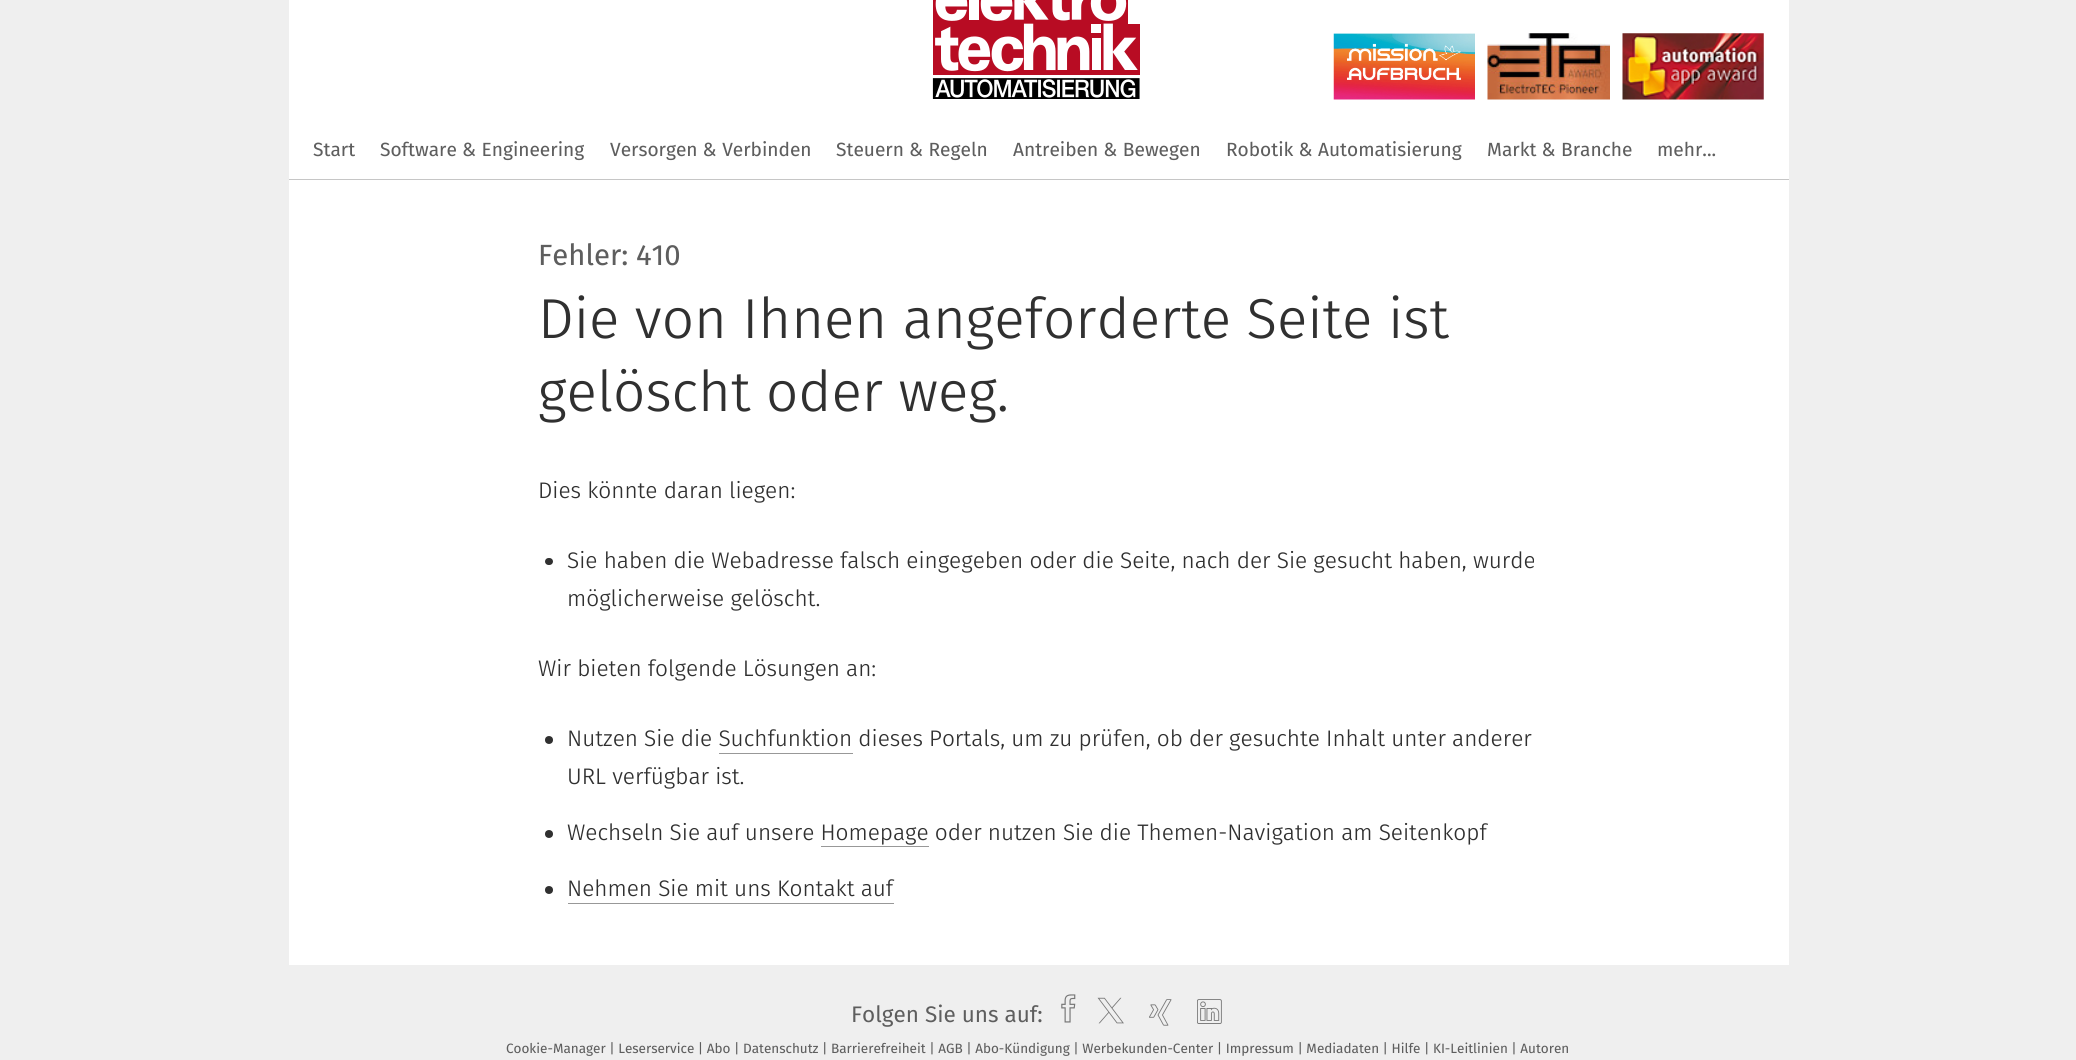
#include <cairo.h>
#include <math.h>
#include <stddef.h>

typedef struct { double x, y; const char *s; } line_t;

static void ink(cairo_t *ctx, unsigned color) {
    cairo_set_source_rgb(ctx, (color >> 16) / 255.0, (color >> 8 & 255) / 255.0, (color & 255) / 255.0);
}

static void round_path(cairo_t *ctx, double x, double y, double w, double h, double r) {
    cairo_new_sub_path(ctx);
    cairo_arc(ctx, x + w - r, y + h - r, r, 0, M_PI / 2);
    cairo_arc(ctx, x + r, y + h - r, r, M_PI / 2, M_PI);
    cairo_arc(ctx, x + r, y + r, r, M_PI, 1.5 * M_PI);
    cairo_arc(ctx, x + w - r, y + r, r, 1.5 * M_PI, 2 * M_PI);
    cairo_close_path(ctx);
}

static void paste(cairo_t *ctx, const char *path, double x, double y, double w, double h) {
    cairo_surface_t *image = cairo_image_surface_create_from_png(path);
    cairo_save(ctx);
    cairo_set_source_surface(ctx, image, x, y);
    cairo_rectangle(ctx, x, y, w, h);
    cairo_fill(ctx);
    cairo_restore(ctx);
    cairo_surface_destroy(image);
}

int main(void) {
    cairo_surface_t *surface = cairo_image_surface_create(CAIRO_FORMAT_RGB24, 2076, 1060);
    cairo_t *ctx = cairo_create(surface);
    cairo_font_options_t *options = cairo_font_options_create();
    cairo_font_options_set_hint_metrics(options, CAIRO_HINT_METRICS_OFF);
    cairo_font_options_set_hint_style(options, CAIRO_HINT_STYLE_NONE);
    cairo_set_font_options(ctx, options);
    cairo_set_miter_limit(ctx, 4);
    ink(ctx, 0xEFEFEF);
    cairo_paint(ctx);
    ink(ctx, 0xFFFFFF);
    cairo_rectangle(ctx, 289, 0, 1500, 965);
    cairo_fill(ctx);
    ink(ctx, 0xC6C6C6);
    cairo_rectangle(ctx, 289, 179, 1500, 1);
    cairo_fill(ctx);
    paste(ctx, "media/1.png", 932, 0, 208, 99);
    paste(ctx, "media/2.png", 1333, 33, 142, 67);
    paste(ctx, "media/3.png", 1487, 33, 123, 67);
    paste(ctx, "media/4.png", 1622, 33, 142, 67);
    cairo_select_font_face(ctx, "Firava", CAIRO_FONT_SLANT_NORMAL, CAIRO_FONT_WEIGHT_NORMAL);
    cairo_set_font_size(ctx, 19.1);
    ink(ctx, 0x5E5E5E);
    {
        static const line_t items[] = {
            {313, 156, "Start"},
            {380, 156, "Software & Engineering"},
            {610, 156, "Versorgen & Verbinden"},
            {836, 156, "Steuern & Regeln"},
            {1013, 156, "Antreiben & Bewegen"},
            {1226, 156, "Robotik & Automatisierung"},
            {1487, 156, "Markt & Branche"},
            {1657, 156, "mehr..."},
        };
        for (size_t i = 0; i < sizeof items / sizeof *items; i++) {
            cairo_move_to(ctx, items[i].x, items[i].y);
            cairo_show_text(ctx, items[i].s);
        }
    }
    cairo_set_font_size(ctx, 29.25);
    cairo_move_to(ctx, 538, 265);
    cairo_show_text(ctx, "Fehler: 410");
    cairo_select_font_face(ctx, "Firava Light", CAIRO_FONT_SLANT_NORMAL, CAIRO_FONT_WEIGHT_NORMAL);
    cairo_set_font_size(ctx, 56.25);
    ink(ctx, 0x303030);
    cairo_move_to(ctx, 538, 338);
    cairo_show_text(ctx, "Die von Ihnen angeforderte Seite ist");
    cairo_move_to(ctx, 538, 411);
    cairo_show_text(ctx, "gelöscht oder weg.");
    cairo_set_font_size(ctx, 22.5);
    cairo_move_to(ctx, 538, 498);
    cairo_show_text(ctx, "Dies könnte daran liegen:");
    round_path(ctx, 545, 558, 8, 7, 3.5);
    cairo_fill(ctx);
    {
        static const line_t items[] = {
            {567, 568, "Sie haben die Webadresse falsch eingegeben oder die Seite, nach der Sie gesucht haben, wurde"},
            {567, 606, "möglicherweise gelöscht."},
            {538, 676, "Wir bieten folgende Lösungen an:"},
        };
        for (size_t i = 0; i < sizeof items / sizeof *items; i++) {
            cairo_move_to(ctx, items[i].x, items[i].y);
            cairo_show_text(ctx, items[i].s);
        }
    }
    cairo_new_path(ctx);
    cairo_arc(ctx, 549, 740, 4, 0, 2 * M_PI);
    cairo_fill(ctx);
    cairo_move_to(ctx, 567, 746);
    cairo_show_text(ctx, "Nutzen Sie die Suchfunktion dieses Portals, um zu prüfen, ob der gesuchte Inhalt unter anderer");
    ink(ctx, 0x989898);
    cairo_rectangle(ctx, 719, 753, 134, 1);
    cairo_fill(ctx);
    ink(ctx, 0x303030);
    cairo_move_to(ctx, 567, 784);
    cairo_show_text(ctx, "URL verfügbar ist.");
    cairo_new_path(ctx);
    cairo_arc(ctx, 549, 834, 4, 0, 2 * M_PI);
    cairo_fill(ctx);
    cairo_move_to(ctx, 567, 840);
    cairo_show_text(ctx, "Wechseln Sie auf unsere Homepage oder nutzen Sie die Themen-Navigation am Seitenkopf");
    ink(ctx, 0x989898);
    cairo_rectangle(ctx, 821, 846, 108, 1);
    cairo_fill(ctx);
    ink(ctx, 0x303030);
    cairo_arc(ctx, 549, 890, 4, 0, 2 * M_PI);
    cairo_fill(ctx);
    cairo_move_to(ctx, 567, 896);
    cairo_show_text(ctx, "Nehmen Sie mit uns Kontakt auf");
    ink(ctx, 0x989898);
    cairo_rectangle(ctx, 568, 903, 326, 1);
    cairo_fill(ctx);
    cairo_select_font_face(ctx, "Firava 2", CAIRO_FONT_SLANT_NORMAL, CAIRO_FONT_WEIGHT_NORMAL);
    ink(ctx, 0x5E5E5E);
    cairo_move_to(ctx, 851, 1022);
    cairo_show_text(ctx, "Folgen Sie uns auf:");
    paste(ctx, "media/5.png", 1061, 994, 15, 29);
    paste(ctx, "media/6.png", 1097, 997, 27, 27);
    paste(ctx, "media/7.png", 1149, 999, 23, 27);
    paste(ctx, "media/8.png", 1197, 999, 25, 25);
    cairo_select_font_face(ctx, "Firava", CAIRO_FONT_SLANT_NORMAL, CAIRO_FONT_WEIGHT_NORMAL);
    cairo_set_font_size(ctx, 13.5);
    cairo_move_to(ctx, 506, 1053);
    cairo_show_text(ctx, "Cookie-Manager | Leserservice | Abo | Datenschutz | Barrierefreiheit | AGB | Abo-Kündigung | Werbekunden-Center | Impressum | Mediadaten | Hilfe | KI-Leitlinien | Autoren");
    cairo_surface_write_to_png(surface, "image.png");
    cairo_font_options_destroy(options);
    cairo_destroy(ctx);
    cairo_surface_destroy(surface);
    return 0;
}
